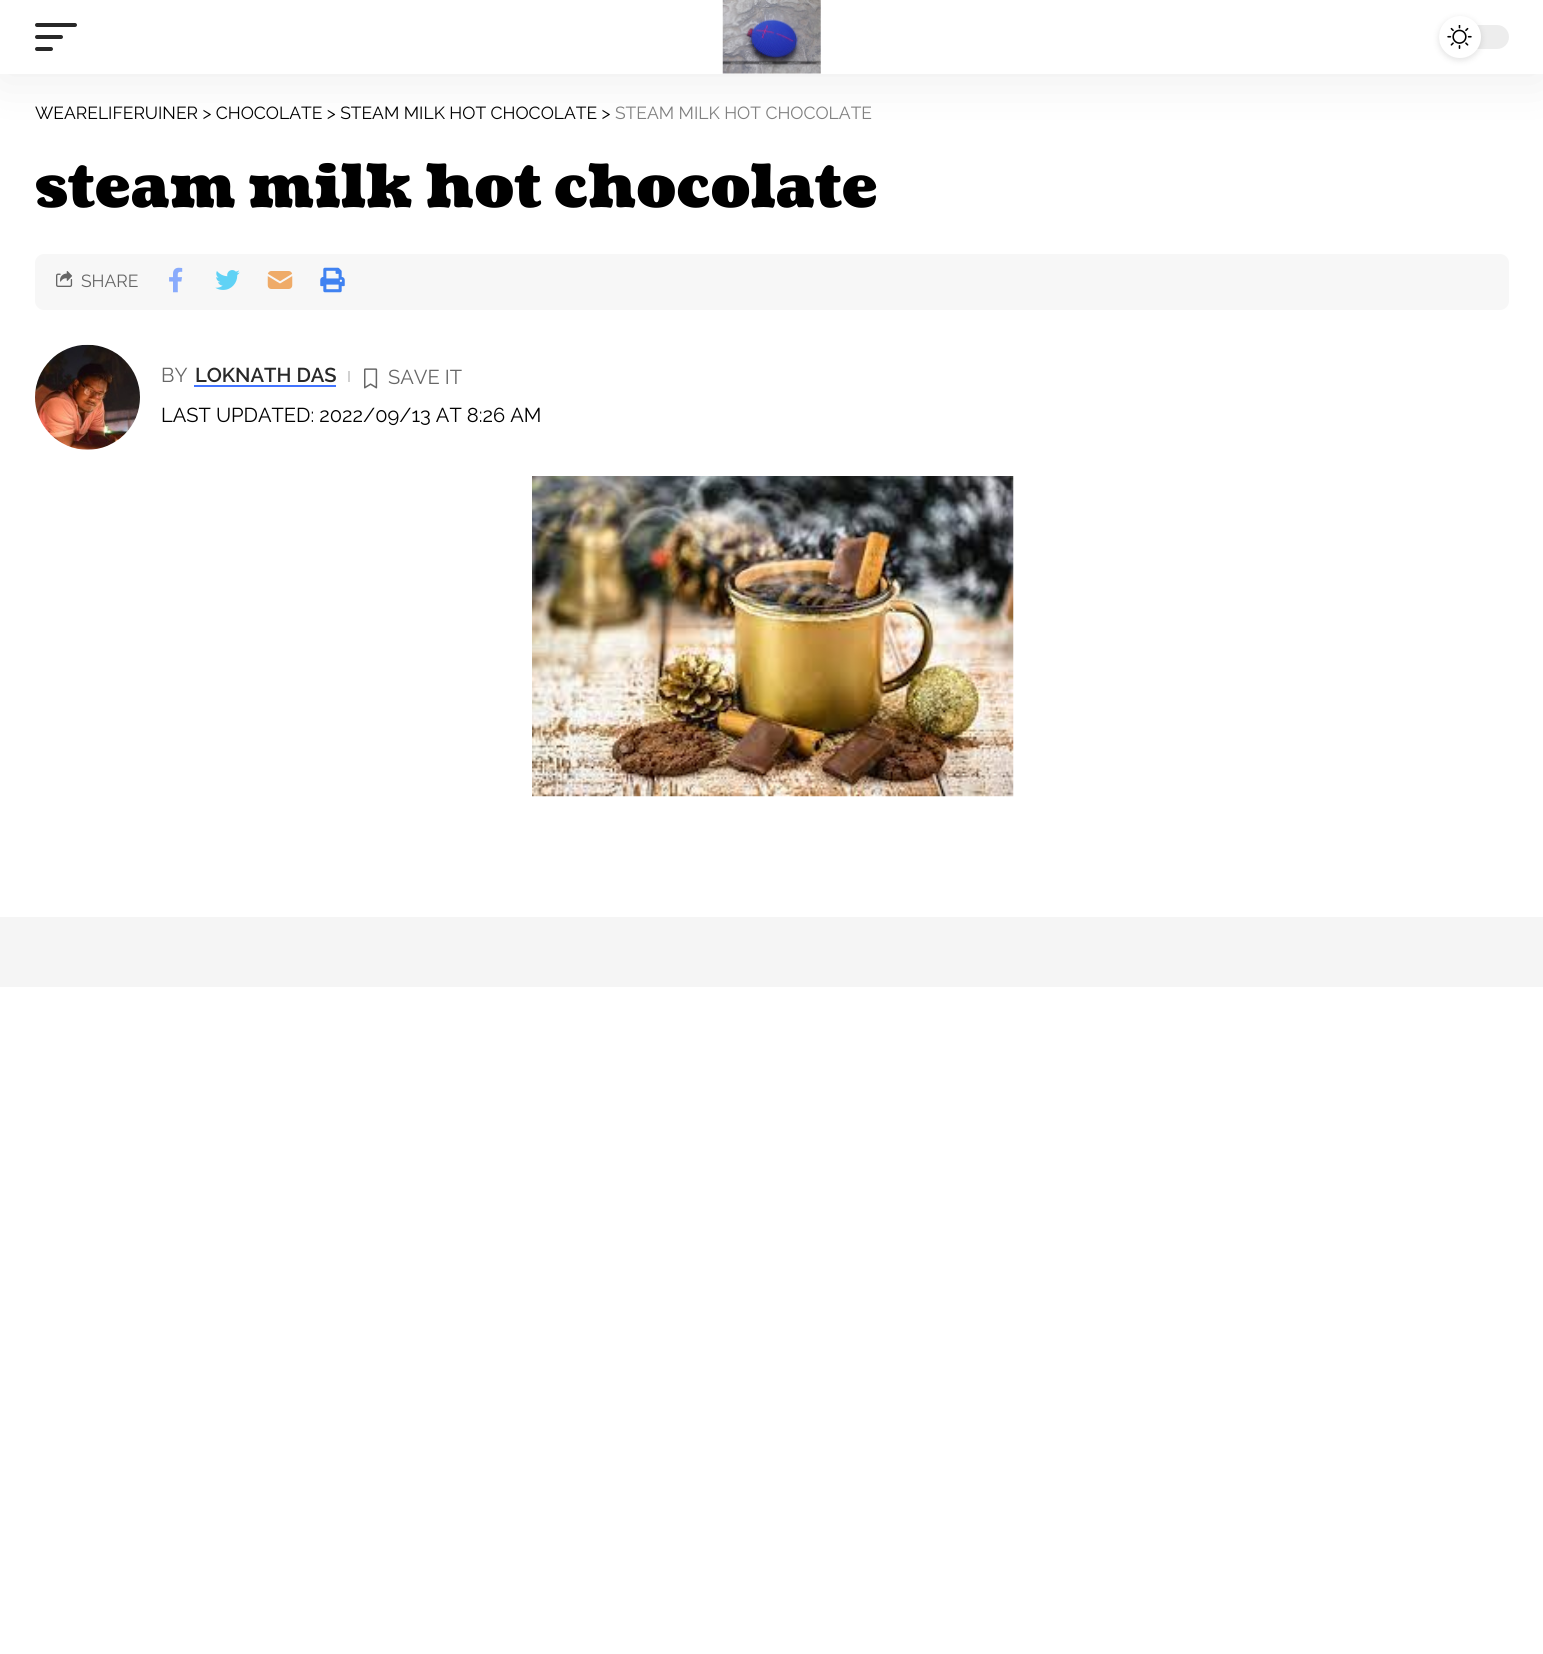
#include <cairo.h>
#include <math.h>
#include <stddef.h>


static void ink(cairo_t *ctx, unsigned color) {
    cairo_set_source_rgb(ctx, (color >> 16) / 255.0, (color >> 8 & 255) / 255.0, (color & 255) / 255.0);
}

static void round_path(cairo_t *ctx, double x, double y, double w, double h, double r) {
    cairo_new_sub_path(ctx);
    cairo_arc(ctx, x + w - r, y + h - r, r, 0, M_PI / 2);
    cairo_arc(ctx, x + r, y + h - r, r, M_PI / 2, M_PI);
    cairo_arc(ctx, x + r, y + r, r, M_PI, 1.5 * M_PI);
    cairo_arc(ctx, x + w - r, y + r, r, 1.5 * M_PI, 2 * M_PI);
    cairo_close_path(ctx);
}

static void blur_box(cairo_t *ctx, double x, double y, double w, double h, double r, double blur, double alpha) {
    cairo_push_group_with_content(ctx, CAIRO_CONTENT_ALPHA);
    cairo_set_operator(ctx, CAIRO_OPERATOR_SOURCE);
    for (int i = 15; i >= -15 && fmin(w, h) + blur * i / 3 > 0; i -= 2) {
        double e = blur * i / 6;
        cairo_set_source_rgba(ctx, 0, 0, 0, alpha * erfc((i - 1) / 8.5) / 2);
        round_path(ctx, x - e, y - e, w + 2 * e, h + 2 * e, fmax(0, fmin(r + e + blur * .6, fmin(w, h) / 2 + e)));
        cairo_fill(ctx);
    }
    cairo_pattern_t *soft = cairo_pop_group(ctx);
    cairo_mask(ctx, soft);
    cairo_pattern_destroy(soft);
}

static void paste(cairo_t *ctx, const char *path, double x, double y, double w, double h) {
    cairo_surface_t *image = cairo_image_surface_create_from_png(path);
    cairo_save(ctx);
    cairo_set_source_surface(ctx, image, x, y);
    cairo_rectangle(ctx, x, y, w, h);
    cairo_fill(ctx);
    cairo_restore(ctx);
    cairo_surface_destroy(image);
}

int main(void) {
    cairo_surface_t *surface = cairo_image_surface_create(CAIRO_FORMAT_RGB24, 1543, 1654);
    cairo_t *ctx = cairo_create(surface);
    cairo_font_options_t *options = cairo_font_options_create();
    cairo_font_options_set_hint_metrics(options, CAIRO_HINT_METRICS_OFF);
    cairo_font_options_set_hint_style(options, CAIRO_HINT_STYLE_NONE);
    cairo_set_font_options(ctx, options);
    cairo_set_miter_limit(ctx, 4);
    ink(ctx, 0xFFFFFF);
    cairo_paint(ctx);
    ink(ctx, 0x000000);
    blur_box(ctx, 0, 7, 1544, 74, 0, 26, 0.07);
    ink(ctx, 0xFFFFFF);
    cairo_rectangle(ctx, 0, 0, 1543, 74);
    cairo_fill(ctx);
    ink(ctx, 0x282828);
    round_path(ctx, 35, 23, 42, 4, 2);
    cairo_fill(ctx);
    round_path(ctx, 35, 35, 28, 4, 2);
    cairo_fill(ctx);
    round_path(ctx, 35, 47, 18, 4, 2);
    cairo_fill(ctx);
    paste(ctx, "media/1.png", 722, 0, 99, 74);
    ink(ctx, 0xEDEDED);
    round_path(ctx, 1439, 25, 70, 24, 12);
    cairo_fill(ctx);
    ink(ctx, 0x000000);
    blur_box(ctx, 1439, 18, 42, 42, 21, 3.5, 0.12);
    ink(ctx, 0xFFFFFF);
    cairo_arc(ctx, 1460, 37, 21, 0, 2 * M_PI);
    cairo_fill(ctx);
    paste(ctx, "media/2.png", 1447, 25, 25, 24);
    cairo_select_font_face(ctx, "Raleway", CAIRO_FONT_SLANT_NORMAL, CAIRO_FONT_WEIGHT_NORMAL);
    cairo_set_font_size(ctx, 17.5);
    ink(ctx, 0x000000);
    cairo_move_to(ctx, 35, 119);
    cairo_show_text(ctx, "WEARELIFERUINER > CHOCOLATE > STEAM MILK HOT CHOCOLATE >");
    ink(ctx, 0x808080);
    cairo_move_to(ctx, 615, 119);
    cairo_show_text(ctx, "STEAM MILK HOT CHOCOLATE");
    cairo_select_font_face(ctx, "Coustard Black", CAIRO_FONT_SLANT_NORMAL, CAIRO_FONT_WEIGHT_NORMAL);
    cairo_set_font_size(ctx, 59.5);
    ink(ctx, 0x000000);
    cairo_move_to(ctx, 35, 207);
    cairo_show_text(ctx, "steam milk hot chocolate");
    ink(ctx, 0xF7F7F7);
    round_path(ctx, 35, 254, 1474, 56, 9);
    cairo_fill(ctx);
    paste(ctx, "media/3.png", 56, 271, 17, 16);
    cairo_select_font_face(ctx, "Raleway", CAIRO_FONT_SLANT_NORMAL, CAIRO_FONT_WEIGHT_NORMAL);
    cairo_set_font_size(ctx, 17.5);
    ink(ctx, 0x666666);
    cairo_move_to(ctx, 81, 287);
    cairo_show_text(ctx, "SHARE");
    paste(ctx, "media/4.png", 169, 267, 14, 26);
    paste(ctx, "media/5.png", 215, 270, 25, 20);
    paste(ctx, "media/6.png", 267, 271, 26, 18);
    paste(ctx, "media/7.png", 320, 267, 25, 26);
    paste(ctx, "media/8.png", 35, 344, 105, 106);
    cairo_set_font_size(ctx, 20.1);
    cairo_move_to(ctx, 161, 382);
    cairo_show_text(ctx, "BY");
    cairo_select_font_face(ctx, "Raleway SemiBold", CAIRO_FONT_SLANT_NORMAL, CAIRO_FONT_WEIGHT_NORMAL);
    ink(ctx, 0x282828);
    cairo_move_to(ctx, 195, 382);
    cairo_show_text(ctx, "LOKNATH DAS");
    ink(ctx, 0x4173FF);
    cairo_rectangle(ctx, 194, 385, 142, 2);
    cairo_fill(ctx);
    ink(ctx, 0xD1D1D1);
    cairo_rectangle(ctx, 348, 371, 2, 11);
    cairo_fill(ctx);
    paste(ctx, "media/9.png", 364, 368, 14, 21);
    cairo_select_font_face(ctx, "Raleway", CAIRO_FONT_SLANT_NORMAL, CAIRO_FONT_WEIGHT_NORMAL);
    ink(ctx, 0x666666);
    cairo_move_to(ctx, 388, 384);
    cairo_show_text(ctx, "SAVE IT");
    ink(ctx, 0x000000);
    cairo_move_to(ctx, 161, 422);
    cairo_show_text(ctx, "LAST UPDATED: 2022/09/13 AT 8:26 AM");
    paste(ctx, "media/10.png", 532, 476, 482, 321);
    ink(ctx, 0xF5F5F5);
    cairo_rectangle(ctx, 0, 917, 1543, 70);
    cairo_fill(ctx);
    cairo_surface_write_to_png(surface, "image.png");
    cairo_font_options_destroy(options);
    cairo_destroy(ctx);
    cairo_surface_destroy(surface);
    return 0;
}
